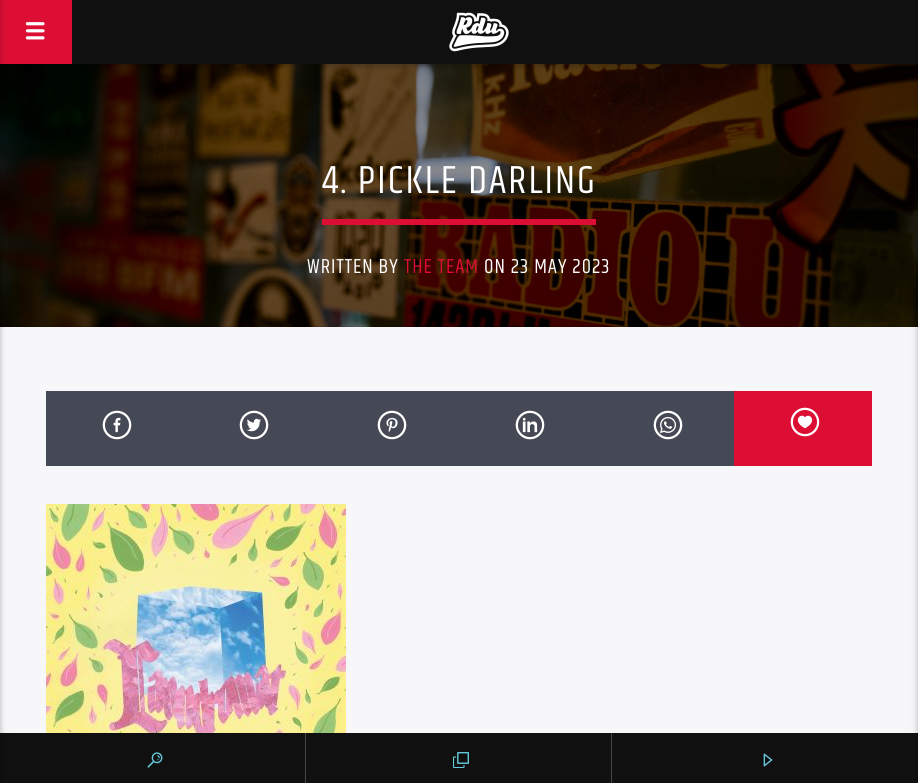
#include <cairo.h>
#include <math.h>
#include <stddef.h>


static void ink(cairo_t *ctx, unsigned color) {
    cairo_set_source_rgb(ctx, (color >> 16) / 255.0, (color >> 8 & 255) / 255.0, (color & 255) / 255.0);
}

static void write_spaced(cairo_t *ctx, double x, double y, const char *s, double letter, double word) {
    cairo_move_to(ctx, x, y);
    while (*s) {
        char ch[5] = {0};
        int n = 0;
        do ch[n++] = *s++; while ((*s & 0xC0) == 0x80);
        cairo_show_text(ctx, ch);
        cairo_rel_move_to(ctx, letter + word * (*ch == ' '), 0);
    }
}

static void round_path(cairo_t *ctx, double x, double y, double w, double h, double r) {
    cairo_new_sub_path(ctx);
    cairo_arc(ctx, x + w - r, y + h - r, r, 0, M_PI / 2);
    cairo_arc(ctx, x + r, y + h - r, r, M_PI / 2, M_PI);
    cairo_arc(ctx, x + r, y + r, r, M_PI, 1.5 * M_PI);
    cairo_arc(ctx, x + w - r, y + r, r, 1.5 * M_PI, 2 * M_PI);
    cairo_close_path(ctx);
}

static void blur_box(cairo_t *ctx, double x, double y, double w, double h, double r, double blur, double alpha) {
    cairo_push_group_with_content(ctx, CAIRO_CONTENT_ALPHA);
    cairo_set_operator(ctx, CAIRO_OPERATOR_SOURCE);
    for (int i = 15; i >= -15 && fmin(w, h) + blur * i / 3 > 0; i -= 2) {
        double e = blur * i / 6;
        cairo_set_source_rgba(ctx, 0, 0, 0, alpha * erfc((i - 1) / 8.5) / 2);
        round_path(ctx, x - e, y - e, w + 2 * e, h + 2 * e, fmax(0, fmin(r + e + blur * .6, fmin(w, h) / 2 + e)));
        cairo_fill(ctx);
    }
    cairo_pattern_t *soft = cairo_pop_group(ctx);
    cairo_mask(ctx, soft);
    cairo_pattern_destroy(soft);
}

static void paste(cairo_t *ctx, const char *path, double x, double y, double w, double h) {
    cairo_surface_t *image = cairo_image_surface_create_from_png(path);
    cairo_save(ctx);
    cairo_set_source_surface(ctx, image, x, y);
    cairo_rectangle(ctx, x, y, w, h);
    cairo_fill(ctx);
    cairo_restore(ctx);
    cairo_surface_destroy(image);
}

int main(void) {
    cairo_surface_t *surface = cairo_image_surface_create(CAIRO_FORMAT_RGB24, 918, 783);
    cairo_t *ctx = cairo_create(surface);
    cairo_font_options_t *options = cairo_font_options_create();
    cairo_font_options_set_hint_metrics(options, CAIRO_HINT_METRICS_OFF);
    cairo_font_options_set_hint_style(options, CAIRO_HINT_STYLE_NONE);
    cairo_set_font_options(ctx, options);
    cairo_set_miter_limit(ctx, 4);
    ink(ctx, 0xF7F7F9);
    cairo_paint(ctx);
    ink(ctx, 0x000000);
    cairo_rectangle(ctx, 0, 64, 918, 263);
    cairo_fill(ctx);
    paste(ctx, "media/3.png", 0, 64, 918, 263);
    ink(ctx, 0x000000);
    blur_box(ctx, 0, 2, 918, 64, 0, 5, 0.12);
    blur_box(ctx, 0, 2, 918, 64, 0, 2.5, 0.16);
    ink(ctx, 0x101010);
    cairo_rectangle(ctx, 72, 0, 846, 64);
    cairo_fill(ctx);
    ink(ctx, 0xDD0E34);
    cairo_rectangle(ctx, 0, 0, 72, 64);
    cairo_fill(ctx);
    paste(ctx, "media/1.png", 25, 22, 20, 18);
    paste(ctx, "media/2.png", 449, 12, 60, 40);
    ink(ctx, 0x101010);
    cairo_rectangle(ctx, 0, 733, 918, 50);
    cairo_fill(ctx);
    ink(ctx, 0x000000);
    blur_box(ctx, -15, 2, 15, 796, 0, 5, 0.12);
    blur_box(ctx, -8, 2, 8, 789, 0, 2.5, 0.16);
    ink(ctx, 0xDD0E34);
    cairo_rectangle(ctx, 322, 219, 274, 6);
    cairo_fill(ctx);
    cairo_select_font_face(ctx, "Khand", CAIRO_FONT_SLANT_NORMAL, CAIRO_FONT_WEIGHT_NORMAL);
    cairo_set_font_size(ctx, 40);
    ink(ctx, 0xFFFFFF);
    write_spaced(ctx, 322, 193, "4. PICKLE DARLING", 2, 0);
    cairo_set_font_size(ctx, 20.75);
    write_spaced(ctx, 307, 273, "WRITTEN BY", 1, 0);
    ink(ctx, 0xDD0E34);
    write_spaced(ctx, 404, 273, "THE TEAM", 1, 0);
    ink(ctx, 0xFFFFFF);
    write_spaced(ctx, 484, 273, "ON 23 MAY 2023", 1, 0);
    ink(ctx, 0x454955);
    cairo_rectangle(ctx, 46, 391, 688, 75);
    cairo_fill(ctx);
    paste(ctx, "media/4.png", 102, 410, 30, 30);
    paste(ctx, "media/5.png", 239, 410, 30, 30);
    paste(ctx, "media/6.png", 377, 410, 30, 30);
    paste(ctx, "media/7.png", 515, 410, 30, 30);
    paste(ctx, "media/8.png", 653, 410, 30, 30);
    ink(ctx, 0xDD0E34);
    cairo_rectangle(ctx, 734, 391, 138, 75);
    cairo_fill(ctx);
    paste(ctx, "media/9.png", 790, 407, 30, 30);
    paste(ctx, "media/10.png", 46, 504, 300, 229);
    ink(ctx, 0x000000);
    blur_box(ctx, 918, 2, 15, 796, 0, 5, 0.12);
    blur_box(ctx, 918, 2, 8, 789, 0, 2.5, 0.16);
    ink(ctx, 0x474747);
    cairo_rectangle(ctx, 305, 733, 1, 50);
    cairo_fill(ctx);
    paste(ctx, "media/11.png", 147, 752, 16, 16);
    cairo_rectangle(ctx, 611, 733, 1, 50);
    cairo_fill(ctx);
    paste(ctx, "media/12.png", 453, 752, 16, 16);
    paste(ctx, "media/13.png", 763, 753, 10, 14);
    cairo_surface_write_to_png(surface, "image.png");
    cairo_font_options_destroy(options);
    cairo_destroy(ctx);
    cairo_surface_destroy(surface);
    return 0;
}
